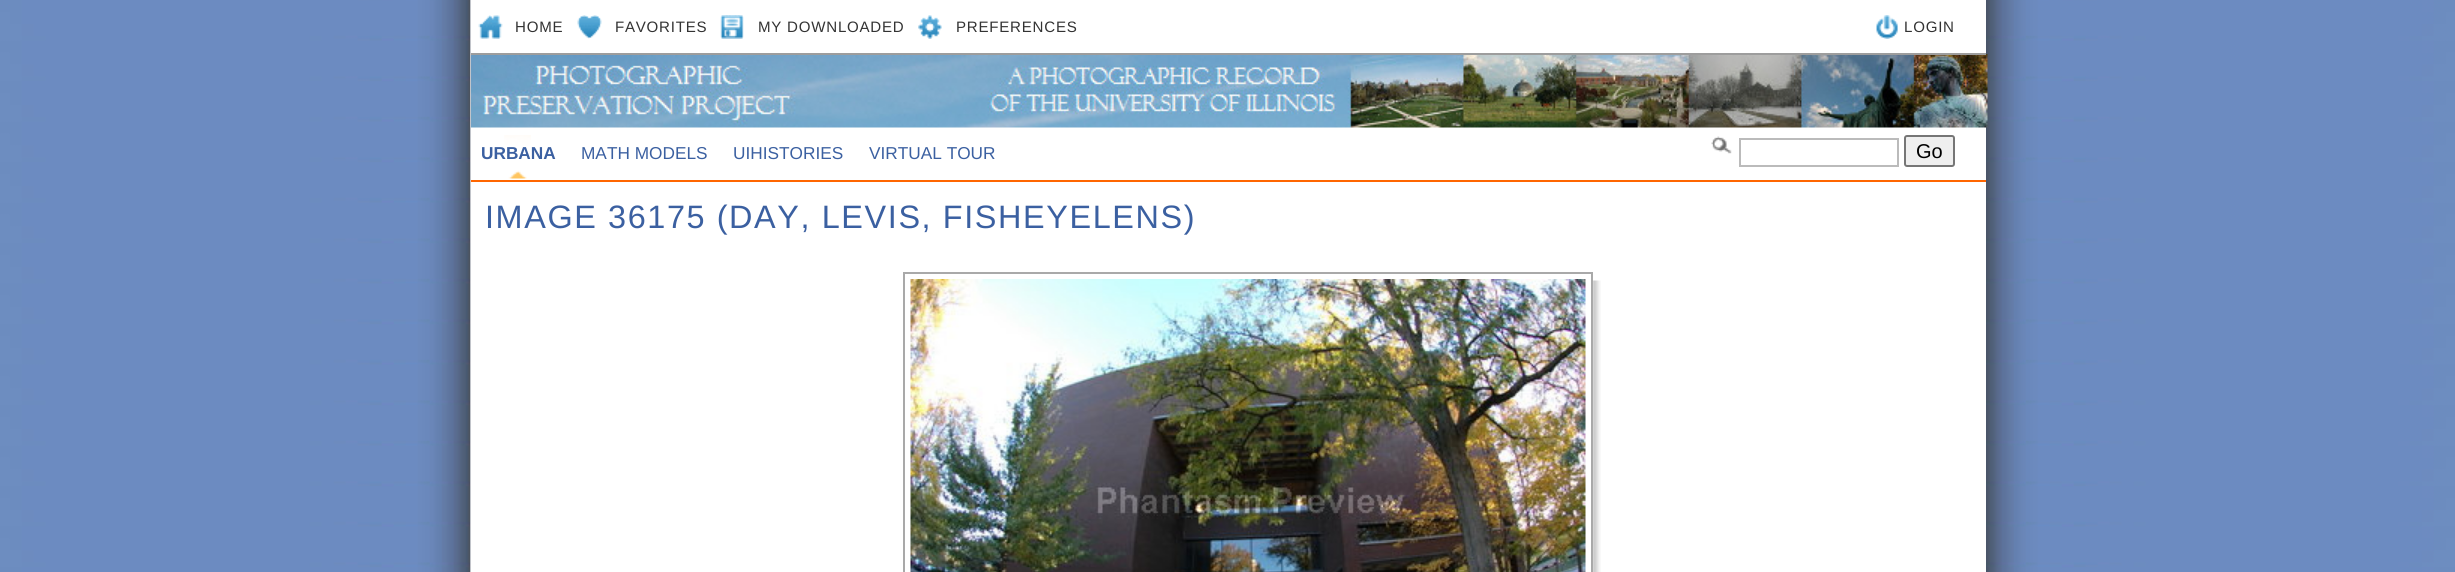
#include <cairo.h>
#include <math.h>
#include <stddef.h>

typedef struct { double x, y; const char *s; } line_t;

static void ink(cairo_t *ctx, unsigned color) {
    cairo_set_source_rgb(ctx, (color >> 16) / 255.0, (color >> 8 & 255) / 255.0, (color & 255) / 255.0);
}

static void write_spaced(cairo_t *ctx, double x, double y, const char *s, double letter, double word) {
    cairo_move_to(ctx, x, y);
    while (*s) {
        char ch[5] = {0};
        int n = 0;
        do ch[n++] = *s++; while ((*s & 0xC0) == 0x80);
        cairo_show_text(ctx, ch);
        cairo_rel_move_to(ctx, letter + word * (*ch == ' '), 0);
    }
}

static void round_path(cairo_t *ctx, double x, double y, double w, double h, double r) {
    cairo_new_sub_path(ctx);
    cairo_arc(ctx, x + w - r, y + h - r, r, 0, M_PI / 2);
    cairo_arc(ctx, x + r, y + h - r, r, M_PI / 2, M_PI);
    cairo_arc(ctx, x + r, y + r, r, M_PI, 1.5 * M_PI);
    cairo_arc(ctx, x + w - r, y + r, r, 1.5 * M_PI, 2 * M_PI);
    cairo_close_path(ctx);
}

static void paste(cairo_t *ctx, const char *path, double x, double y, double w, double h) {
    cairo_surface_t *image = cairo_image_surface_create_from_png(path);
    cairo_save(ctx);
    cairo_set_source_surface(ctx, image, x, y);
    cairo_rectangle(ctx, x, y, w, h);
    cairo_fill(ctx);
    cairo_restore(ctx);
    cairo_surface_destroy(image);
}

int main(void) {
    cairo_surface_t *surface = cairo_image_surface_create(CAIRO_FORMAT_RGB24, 2455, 572);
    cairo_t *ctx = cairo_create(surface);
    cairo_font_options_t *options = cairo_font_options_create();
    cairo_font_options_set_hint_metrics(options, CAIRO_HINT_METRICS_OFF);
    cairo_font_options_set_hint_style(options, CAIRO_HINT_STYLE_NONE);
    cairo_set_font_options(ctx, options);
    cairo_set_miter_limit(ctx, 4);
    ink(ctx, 0xFFFFFF);
    cairo_paint(ctx);
    paste(ctx, "media/1.png", 0, 0, 2455, 572);
    ink(ctx, 0xFFFFFF);
    cairo_rectangle(ctx, 471, 0, 1515, 572);
    cairo_fill(ctx);
    paste(ctx, "media/7.png", 471, 54, 1517, 74);
    ink(ctx, 0x9D9D9D);
    cairo_rectangle(ctx, 471, 53, 1515, 2);
    cairo_fill(ctx);
    paste(ctx, "media/2.png", 478, 15, 25, 24);
    cairo_select_font_face(ctx, "Liberation Sans", CAIRO_FONT_SLANT_NORMAL, CAIRO_FONT_WEIGHT_NORMAL);
    cairo_set_font_size(ctx, 15.1);
    ink(ctx, 0x333333);
    write_spaced(ctx, 515, 32, "HOME", 0.75, 0);
    paste(ctx, "media/3.png", 577, 15, 25, 24);
    write_spaced(ctx, 615, 32, "FAVORITES", 0.75, 0);
    paste(ctx, "media/4.png", 720, 15, 24, 24);
    write_spaced(ctx, 758, 32, "MY DOWNLOADED", 0.75, 0);
    paste(ctx, "media/5.png", 918, 15, 24, 24);
    write_spaced(ctx, 956, 32, "PREFERENCES", 0.75, 0);
    paste(ctx, "media/6.png", 1876, 15, 22, 24);
    write_spaced(ctx, 1904, 32, "LOGIN", 0.75, 0);
    ink(ctx, 0xFF6600);
    cairo_rectangle(ctx, 471, 180, 1515, 2);
    cairo_fill(ctx);
    paste(ctx, "media/8.png", 504, 135, 27, 44);
    cairo_select_font_face(ctx, "Liberation Sans", CAIRO_FONT_SLANT_NORMAL, CAIRO_FONT_WEIGHT_BOLD);
    cairo_set_font_size(ctx, 17.25);
    ink(ctx, 0x3B60A1);
    cairo_move_to(ctx, 481, 159);
    cairo_show_text(ctx, "URBANA");
    cairo_select_font_face(ctx, "Liberation Sans", CAIRO_FONT_SLANT_NORMAL, CAIRO_FONT_WEIGHT_NORMAL);
    {
        static const line_t items[] = {
            {581, 159, "MATH MODELS"},
            {733, 159, "UIHISTORIES"},
            {869, 159, "VIRTUAL TOUR"},
        };
        for (size_t i = 0; i < sizeof items / sizeof *items; i++) {
            cairo_move_to(ctx, items[i].x, items[i].y);
            cairo_show_text(ctx, items[i].s);
        }
    }
    cairo_set_font_size(ctx, 32.4);
    write_spaced(ctx, 485, 228, "IMAGE 36175 (DAY, LEVIS, FISHEYELENS)", 1.6, 0);
    paste(ctx, "media/9.png", 1593, 280, 8, 292);
    cairo_rectangle(ctx, 904, 273, 688, 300);
    ink(ctx, 0xA9A9A9);
    cairo_stroke(ctx);
    paste(ctx, "media/10.png", 910, 279, 676, 293);
    paste(ctx, "media/11.png", 1711, 136, 21, 18);
    cairo_rectangle(ctx, 1740, 139, 158, 27);
    ink(ctx, 0xBBBBBB);
    cairo_stroke(ctx);
    ink(ctx, 0xEFEFEF);
    round_path(ctx, 1905, 136, 49, 30, 2);
    cairo_fill_preserve(ctx);
    ink(ctx, 0x767676);
    cairo_stroke(ctx);
    cairo_set_font_size(ctx, 20);
    ink(ctx, 0x000000);
    cairo_move_to(ctx, 1916, 158);
    cairo_show_text(ctx, "Go");
    cairo_surface_write_to_png(surface, "image.png");
    cairo_font_options_destroy(options);
    cairo_destroy(ctx);
    cairo_surface_destroy(surface);
    return 0;
}
